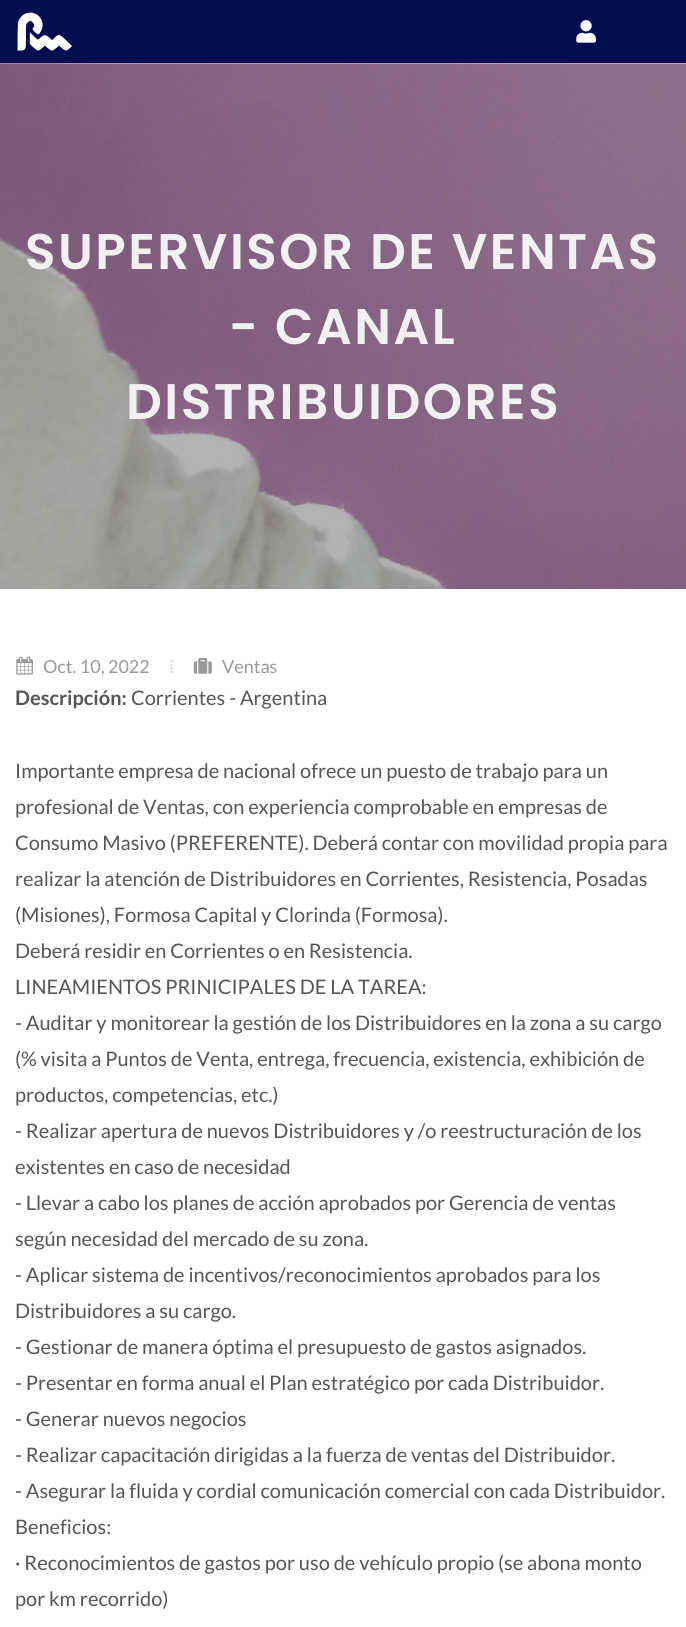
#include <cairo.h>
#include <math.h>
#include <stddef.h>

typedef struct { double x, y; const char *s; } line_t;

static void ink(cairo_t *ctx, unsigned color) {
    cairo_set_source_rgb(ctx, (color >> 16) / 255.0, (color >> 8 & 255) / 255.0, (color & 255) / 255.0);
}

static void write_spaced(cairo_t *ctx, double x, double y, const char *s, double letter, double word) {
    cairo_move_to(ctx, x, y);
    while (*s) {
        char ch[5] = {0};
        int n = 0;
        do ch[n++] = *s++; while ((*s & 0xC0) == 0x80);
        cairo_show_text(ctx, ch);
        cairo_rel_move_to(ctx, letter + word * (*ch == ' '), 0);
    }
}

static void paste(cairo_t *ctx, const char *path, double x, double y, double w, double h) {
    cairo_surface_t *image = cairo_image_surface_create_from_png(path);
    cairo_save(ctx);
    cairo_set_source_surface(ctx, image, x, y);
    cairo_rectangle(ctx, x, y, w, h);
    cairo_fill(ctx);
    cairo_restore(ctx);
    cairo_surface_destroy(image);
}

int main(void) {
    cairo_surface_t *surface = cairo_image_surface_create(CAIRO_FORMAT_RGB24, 686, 1627);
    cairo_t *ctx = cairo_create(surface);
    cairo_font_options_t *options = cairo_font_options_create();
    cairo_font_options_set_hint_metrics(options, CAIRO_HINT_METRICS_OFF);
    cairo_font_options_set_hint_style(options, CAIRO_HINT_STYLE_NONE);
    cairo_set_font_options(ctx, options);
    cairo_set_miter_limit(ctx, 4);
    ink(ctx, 0xFFFFFF);
    cairo_paint(ctx);
    ink(ctx, 0x030D4F);
    cairo_rectangle(ctx, 0, 0, 686, 63);
    cairo_fill(ctx);
    paste(ctx, "media/1.png", 17, 12, 55, 39);
    paste(ctx, "media/2.png", 576, 20, 20, 23);
    paste(ctx, "media/3.png", 0, 63, 686, 526);
    cairo_select_font_face(ctx, "Poppins SemiBold", CAIRO_FONT_SLANT_NORMAL, CAIRO_FONT_WEIGHT_NORMAL);
    cairo_set_font_size(ctx, 50);
    ink(ctx, 0xF3F0F3);
    {
        static const line_t items[] = {
            {25, 269, "SUPERVISOR DE VENTAS"},
            {229, 344, "- CANAL"},
            {126, 419, "DISTRIBUIDORES"},
        };
        for (size_t i = 0; i < sizeof items / sizeof *items; i++) {
            write_spaced(ctx, items[i].x, items[i].y, items[i].s, 2.5, 0);
        }
    }
    paste(ctx, "media/4.png", 16, 656, 17, 19);
    cairo_select_font_face(ctx, "Lato", CAIRO_FONT_SLANT_NORMAL, CAIRO_FONT_WEIGHT_NORMAL);
    cairo_set_font_size(ctx, 18);
    ink(ctx, 0x999999);
    cairo_move_to(ctx, 43, 673);
    cairo_show_text(ctx, "Oct. 10, 2022");
    cairo_select_font_face(ctx, "Liberation Sans", CAIRO_FONT_SLANT_NORMAL, CAIRO_FONT_WEIGHT_NORMAL);
    ink(ctx, 0xCCCCCC);
    cairo_move_to(ctx, 169, 673);
    cairo_show_text(ctx, "⁞");
    paste(ctx, "media/5.png", 193, 658, 19, 16);
    cairo_select_font_face(ctx, "Lato", CAIRO_FONT_SLANT_NORMAL, CAIRO_FONT_WEIGHT_NORMAL);
    ink(ctx, 0x999999);
    cairo_move_to(ctx, 222, 673);
    cairo_show_text(ctx, "Ventas");
    cairo_select_font_face(ctx, "Lato", CAIRO_FONT_SLANT_NORMAL, CAIRO_FONT_WEIGHT_BOLD);
    cairo_set_font_size(ctx, 20);
    ink(ctx, 0x555555);
    cairo_move_to(ctx, 15, 705);
    cairo_show_text(ctx, "Descripción:");
    cairo_select_font_face(ctx, "Lato", CAIRO_FONT_SLANT_NORMAL, CAIRO_FONT_WEIGHT_NORMAL);
    {
        static const line_t items[] = {
            {131, 705, "Corrientes - Argentina"},
            {15, 778, "Importante empresa de nacional ofrece un puesto de trabajo para un"},
            {15, 814, "profesional de Ventas, con experiencia comprobable en empresas de"},
            {15, 850, "Consumo Masivo (PREFERENTE). Deberá contar con movilidad propia para"},
            {15, 886, "realizar la atención de Distribuidores en Corrientes, Resistencia, Posadas"},
            {15, 922, "(Misiones), Formosa Capital y Clorinda (Formosa)."},
            {15, 958, "Deberá residir en Corrientes o en Resistencia."},
            {15, 994, "LINEAMIENTOS PRINICIPALES DE LA TAREA:"},
            {15, 1030, "- Auditar y monitorear la gestión de los Distribuidores en la zona a su cargo"},
            {15, 1066, "(% visita a Puntos de Venta, entrega, frecuencia, existencia, exhibición de"},
            {15, 1102, "productos, competencias, etc.)"},
            {15, 1138, "- Realizar apertura de nuevos Distribuidores y /o reestructuración de los"},
            {15, 1174, "existentes en caso de necesidad"},
            {15, 1210, "- Llevar a cabo los planes de acción aprobados por Gerencia de ventas"},
            {15, 1246, "según necesidad del mercado de su zona."},
            {15, 1282, "- Aplicar sistema de incentivos/reconocimientos aprobados para los"},
            {15, 1318, "Distribuidores a su cargo."},
            {15, 1354, "- Gestionar de manera óptima el presupuesto de gastos asignados."},
            {15, 1390, "- Presentar en forma anual el Plan estratégico por cada Distribuidor."},
            {15, 1426, "- Generar nuevos negocios"},
            {15, 1462, "- Realizar capacitación dirigidas a la fuerza de ventas del Distribuidor."},
            {15, 1498, "- Asegurar la fluida y cordial comunicación comercial con cada Distribuidor."},
            {15, 1534, "Beneficios:"},
            {15, 1570, "· Reconocimientos de gastos por uso de vehículo propio (se abona monto"},
            {15, 1606, "por km recorrido)"},
        };
        for (size_t i = 0; i < sizeof items / sizeof *items; i++) {
            cairo_move_to(ctx, items[i].x, items[i].y);
            cairo_show_text(ctx, items[i].s);
        }
    }
    cairo_surface_write_to_png(surface, "image.png");
    cairo_font_options_destroy(options);
    cairo_destroy(ctx);
    cairo_surface_destroy(surface);
    return 0;
}
